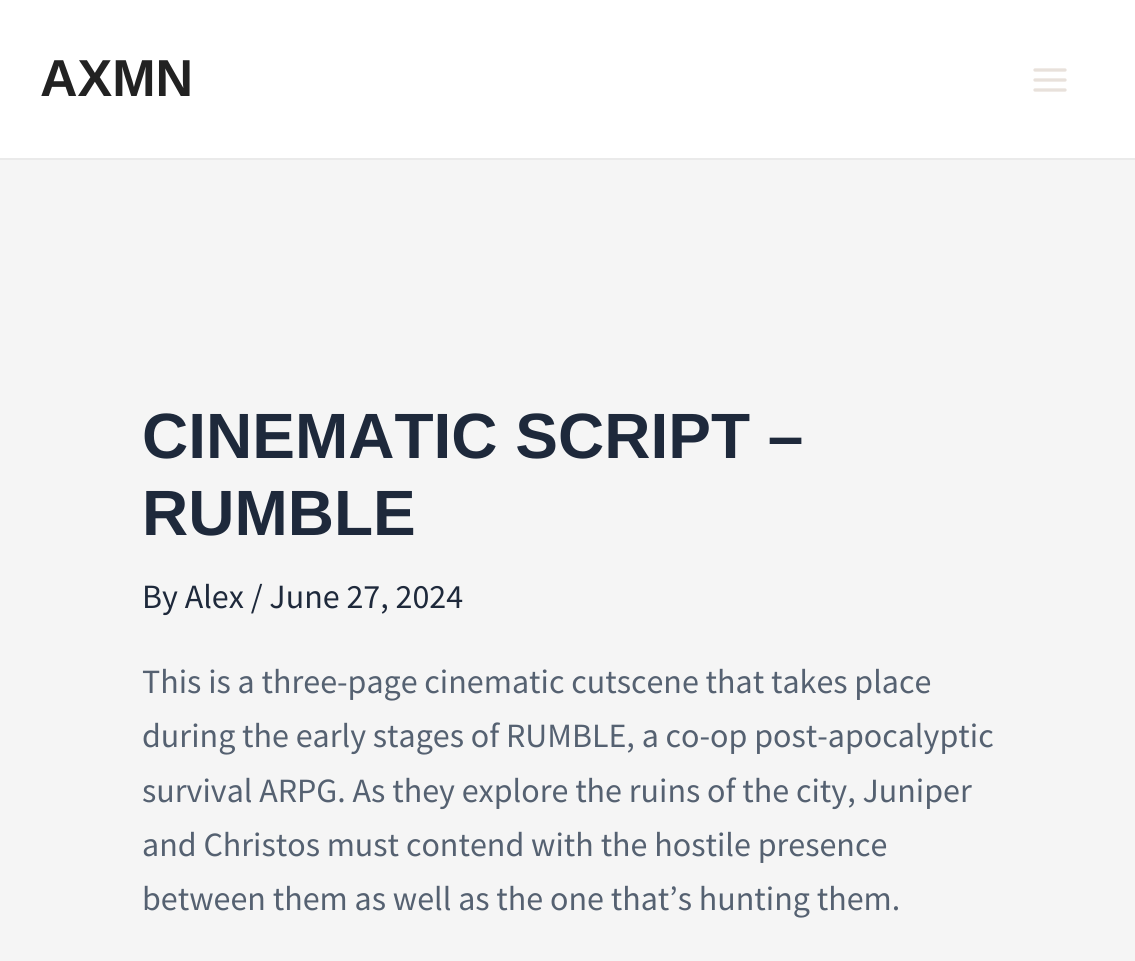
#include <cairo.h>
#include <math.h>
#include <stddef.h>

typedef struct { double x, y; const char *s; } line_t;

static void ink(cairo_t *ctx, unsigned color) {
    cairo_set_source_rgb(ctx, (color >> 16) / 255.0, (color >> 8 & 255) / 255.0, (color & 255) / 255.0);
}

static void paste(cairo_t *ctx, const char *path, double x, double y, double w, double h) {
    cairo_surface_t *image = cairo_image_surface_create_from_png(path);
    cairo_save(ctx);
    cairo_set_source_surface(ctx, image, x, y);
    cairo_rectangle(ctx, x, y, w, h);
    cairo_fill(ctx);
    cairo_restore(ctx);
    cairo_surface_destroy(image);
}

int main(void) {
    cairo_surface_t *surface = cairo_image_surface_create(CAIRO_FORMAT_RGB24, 1135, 961);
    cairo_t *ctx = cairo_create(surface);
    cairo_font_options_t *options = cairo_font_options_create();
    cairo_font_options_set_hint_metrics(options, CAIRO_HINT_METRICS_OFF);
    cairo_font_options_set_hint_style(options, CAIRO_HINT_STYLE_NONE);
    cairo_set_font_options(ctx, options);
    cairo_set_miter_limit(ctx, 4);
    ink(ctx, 0xF5F5F5);
    cairo_paint(ctx);
    ink(ctx, 0xFFFFFF);
    cairo_rectangle(ctx, 0, 0, 1135, 158);
    cairo_fill(ctx);
    ink(ctx, 0xEAEAEA);
    cairo_rectangle(ctx, 0, 158, 1135, 2);
    cairo_fill(ctx);
    cairo_select_font_face(ctx, "Liberation Sans", CAIRO_FONT_SLANT_NORMAL, CAIRO_FONT_WEIGHT_BOLD);
    cairo_set_font_size(ctx, 52);
    ink(ctx, 0x222222);
    cairo_move_to(ctx, 40, 96);
    cairo_show_text(ctx, "AXMN");
    paste(ctx, "media/1.png", 1033, 68, 34, 24);
    cairo_set_font_size(ctx, 64);
    ink(ctx, 0x1E293B);
    cairo_move_to(ctx, 142, 458);
    cairo_show_text(ctx, "CINEMATIC SCRIPT –");
    cairo_move_to(ctx, 142, 535);
    cairo_show_text(ctx, "RUMBLE");
    cairo_select_font_face(ctx, "Source Sans Pro", CAIRO_FONT_SLANT_NORMAL, CAIRO_FONT_WEIGHT_NORMAL);
    cairo_set_font_size(ctx, 34);
    cairo_move_to(ctx, 142, 608);
    cairo_show_text(ctx, "By Alex / June 27, 2024");
    ink(ctx, 0x556171);
    {
        static const line_t items[] = {
            {142, 693, "This is a three-page cinematic cutscene that takes place"},
            {142, 747, "during the early stages of RUMBLE, a co-op post-apocalyptic"},
            {142, 802, "survival ARPG. As they explore the ruins of the city, Juniper"},
            {142, 856, "and Christos must contend with the hostile presence"},
            {142, 910, "between them as well as the one that’s hunting them."},
        };
        for (size_t i = 0; i < sizeof items / sizeof *items; i++) {
            cairo_move_to(ctx, items[i].x, items[i].y);
            cairo_show_text(ctx, items[i].s);
        }
    }
    cairo_surface_write_to_png(surface, "image.png");
    cairo_font_options_destroy(options);
    cairo_destroy(ctx);
    cairo_surface_destroy(surface);
    return 0;
}
